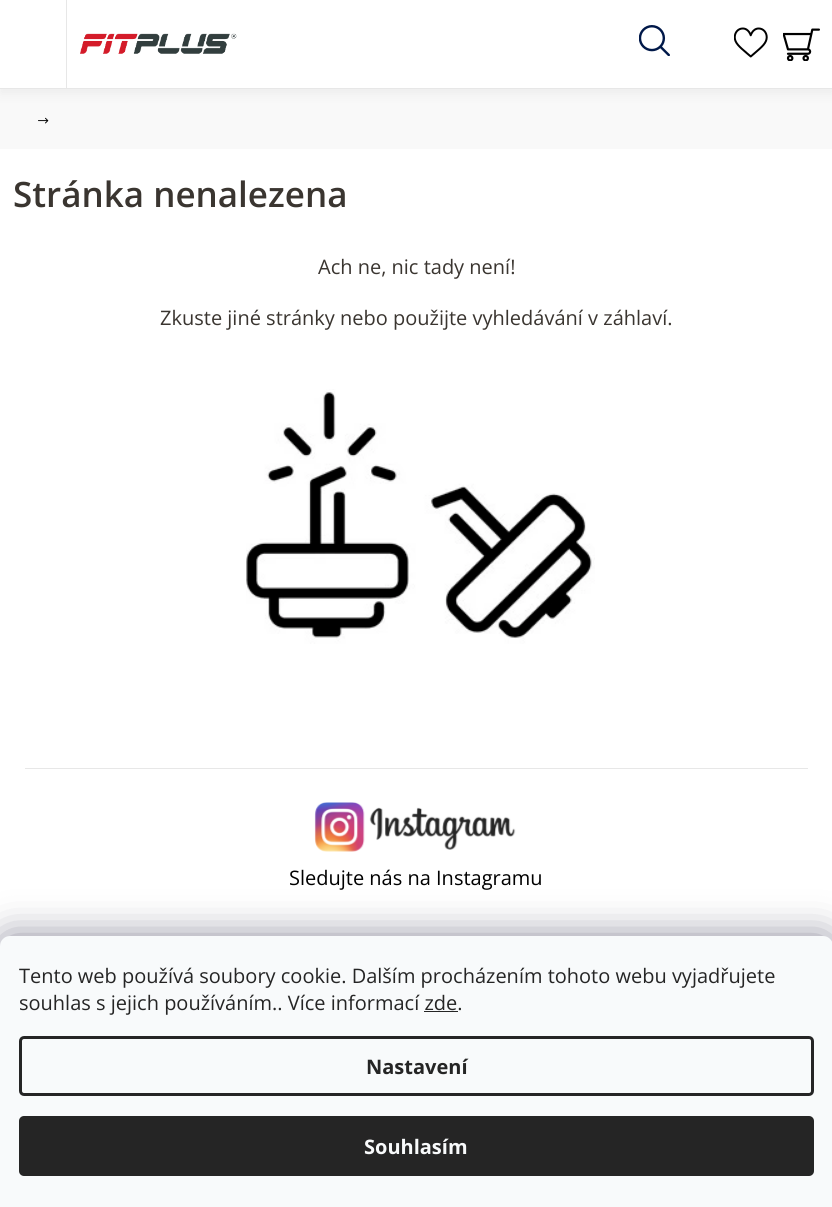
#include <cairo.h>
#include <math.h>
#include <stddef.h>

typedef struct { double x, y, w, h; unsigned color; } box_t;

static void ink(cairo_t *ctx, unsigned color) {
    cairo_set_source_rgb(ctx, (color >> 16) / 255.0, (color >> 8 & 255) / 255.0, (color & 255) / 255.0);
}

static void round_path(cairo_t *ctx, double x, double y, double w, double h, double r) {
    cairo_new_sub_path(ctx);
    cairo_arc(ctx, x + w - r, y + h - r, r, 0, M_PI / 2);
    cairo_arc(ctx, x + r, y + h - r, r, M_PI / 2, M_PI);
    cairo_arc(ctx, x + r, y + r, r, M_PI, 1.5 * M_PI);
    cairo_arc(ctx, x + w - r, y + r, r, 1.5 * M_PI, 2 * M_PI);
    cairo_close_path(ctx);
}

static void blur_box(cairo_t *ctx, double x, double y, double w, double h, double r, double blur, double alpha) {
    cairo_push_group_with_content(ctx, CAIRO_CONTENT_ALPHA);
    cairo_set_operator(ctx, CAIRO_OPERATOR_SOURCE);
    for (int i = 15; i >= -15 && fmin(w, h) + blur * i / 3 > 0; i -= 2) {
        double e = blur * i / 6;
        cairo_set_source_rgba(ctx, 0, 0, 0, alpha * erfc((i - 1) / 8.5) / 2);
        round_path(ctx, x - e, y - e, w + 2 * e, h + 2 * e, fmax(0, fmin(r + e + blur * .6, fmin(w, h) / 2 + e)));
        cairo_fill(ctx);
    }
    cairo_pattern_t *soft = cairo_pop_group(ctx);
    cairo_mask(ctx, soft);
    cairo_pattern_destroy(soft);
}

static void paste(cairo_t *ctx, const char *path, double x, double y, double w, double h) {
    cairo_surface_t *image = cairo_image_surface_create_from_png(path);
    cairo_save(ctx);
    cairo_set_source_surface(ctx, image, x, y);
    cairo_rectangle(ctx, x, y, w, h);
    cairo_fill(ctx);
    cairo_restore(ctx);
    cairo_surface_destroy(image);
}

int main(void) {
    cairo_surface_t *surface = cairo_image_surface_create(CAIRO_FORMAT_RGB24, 832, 1207);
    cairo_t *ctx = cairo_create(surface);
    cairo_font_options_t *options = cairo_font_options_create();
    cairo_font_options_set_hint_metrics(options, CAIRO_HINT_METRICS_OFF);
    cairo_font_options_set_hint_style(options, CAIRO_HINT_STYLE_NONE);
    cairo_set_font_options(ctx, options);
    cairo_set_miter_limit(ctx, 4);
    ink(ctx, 0xFFFFFF);
    cairo_paint(ctx);
    ink(ctx, 0xF9F9F9);
    cairo_rectangle(ctx, 0, 89, 820, 60);
    cairo_fill(ctx);
    cairo_new_path(ctx);
    cairo_move_to(ctx, 13, 149);
    cairo_line_to(ctx, 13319, 149);
    cairo_line_to(ctx, 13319, 88);
    cairo_line_to(ctx, 820, 88);
    cairo_line_to(ctx, 820, 149);
    cairo_close_path(ctx);
    cairo_fill(ctx);
    ink(ctx, 0x000000);
    blur_box(ctx, 0, 5, 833, 89, 0, 6, 0.05);
    {
        static const box_t items[] = {
            {0, 0, 832, 88, 0xFFFFFF},
            {0, 88, 832, 1, 0xE7E7E7},
            {66, 0, 1, 88, 0xE7E7E7},
        };
        for (size_t i = 0; i < sizeof items / sizeof *items; i++) {
            ink(ctx, items[i].color);
            cairo_rectangle(ctx, items[i].x, items[i].y, items[i].w, items[i].h);
            cairo_fill(ctx);
        }
    }
    paste(ctx, "media/1.png", 639, 25, 31, 31);
    paste(ctx, "media/2.png", 734, 27, 34, 31);
    paste(ctx, "media/3.png", 783, 28, 37, 33);
    paste(ctx, "media/4.png", 80, 33, 157, 21);
    paste(ctx, "media/5.png", 38, 117, 11, 7);
    cairo_select_font_face(ctx, "Open Sans SemiBold", CAIRO_FONT_SLANT_NORMAL, CAIRO_FONT_WEIGHT_NORMAL);
    cairo_set_font_size(ctx, 35);
    ink(ctx, 0x3A3530);
    cairo_move_to(ctx, 13, 207);
    cairo_show_text(ctx, "Stránka nenalezena");
    cairo_select_font_face(ctx, "Open Sans", CAIRO_FONT_SLANT_NORMAL, CAIRO_FONT_WEIGHT_NORMAL);
    cairo_set_font_size(ctx, 20);
    cairo_move_to(ctx, 318, 274);
    cairo_show_text(ctx, "Ach ne, nic tady není!");
    cairo_move_to(ctx, 160, 325);
    cairo_show_text(ctx, "Zkuste jiné stránky nebo použijte vyhledávání v záhlaví.");
    paste(ctx, "media/6.png", 246, 389, 349, 255);
    ink(ctx, 0xE7E7E7);
    cairo_rectangle(ctx, 25, 768, 783, 1);
    cairo_fill(ctx);
    paste(ctx, "media/7.png", 314, 802, 202, 50);
    ink(ctx, 0x000000);
    cairo_move_to(ctx, 289, 885);
    cairo_show_text(ctx, "Sledujte nás na Instagramu");
    ink(ctx, 0x1B1939);
    blur_box(ctx, 0, 936, 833, 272, 10, 19, 0.5);
    ink(ctx, 0xF8FAFB);
    cairo_new_path(ctx);
    cairo_move_to(ctx, 10, 936);
    cairo_line_to(ctx, 823, 936);
    cairo_curve_to(ctx, 828.5, 936, 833, 940.5, 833, 946);
    cairo_line_to(ctx, 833, 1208);
    cairo_line_to(ctx, 0, 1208);
    cairo_line_to(ctx, 0, 946);
    cairo_curve_to(ctx, 0, 940.5, 4.5, 936, 10, 936);
    cairo_close_path(ctx);
    cairo_fill(ctx);
    ink(ctx, 0x252525);
    cairo_move_to(ctx, 19, 983);
    cairo_show_text(ctx, "Tento web používá soubory cookie. Dalším procházením tohoto webu vyjadřujete");
    cairo_move_to(ctx, 19, 1010);
    cairo_show_text(ctx, "souhlas s jejich používáním.. Více informací zde.");
    cairo_rectangle(ctx, 424, 1011, 34, 1);
    cairo_fill(ctx);
    round_path(ctx, 20.5, 1037.5, 792, 57, 3.5);
    cairo_set_line_width(ctx, 3);
    cairo_stroke(ctx);
    cairo_select_font_face(ctx, "Open Sans", CAIRO_FONT_SLANT_NORMAL, CAIRO_FONT_WEIGHT_BOLD);
    cairo_move_to(ctx, 366, 1074);
    cairo_show_text(ctx, "Nastavení");
    round_path(ctx, 19, 1116, 795, 60, 5);
    cairo_fill(ctx);
    ink(ctx, 0xF8FAFB);
    cairo_move_to(ctx, 364, 1154);
    cairo_show_text(ctx, "Souhlasím");
    cairo_surface_write_to_png(surface, "image.png");
    cairo_font_options_destroy(options);
    cairo_destroy(ctx);
    cairo_surface_destroy(surface);
    return 0;
}
